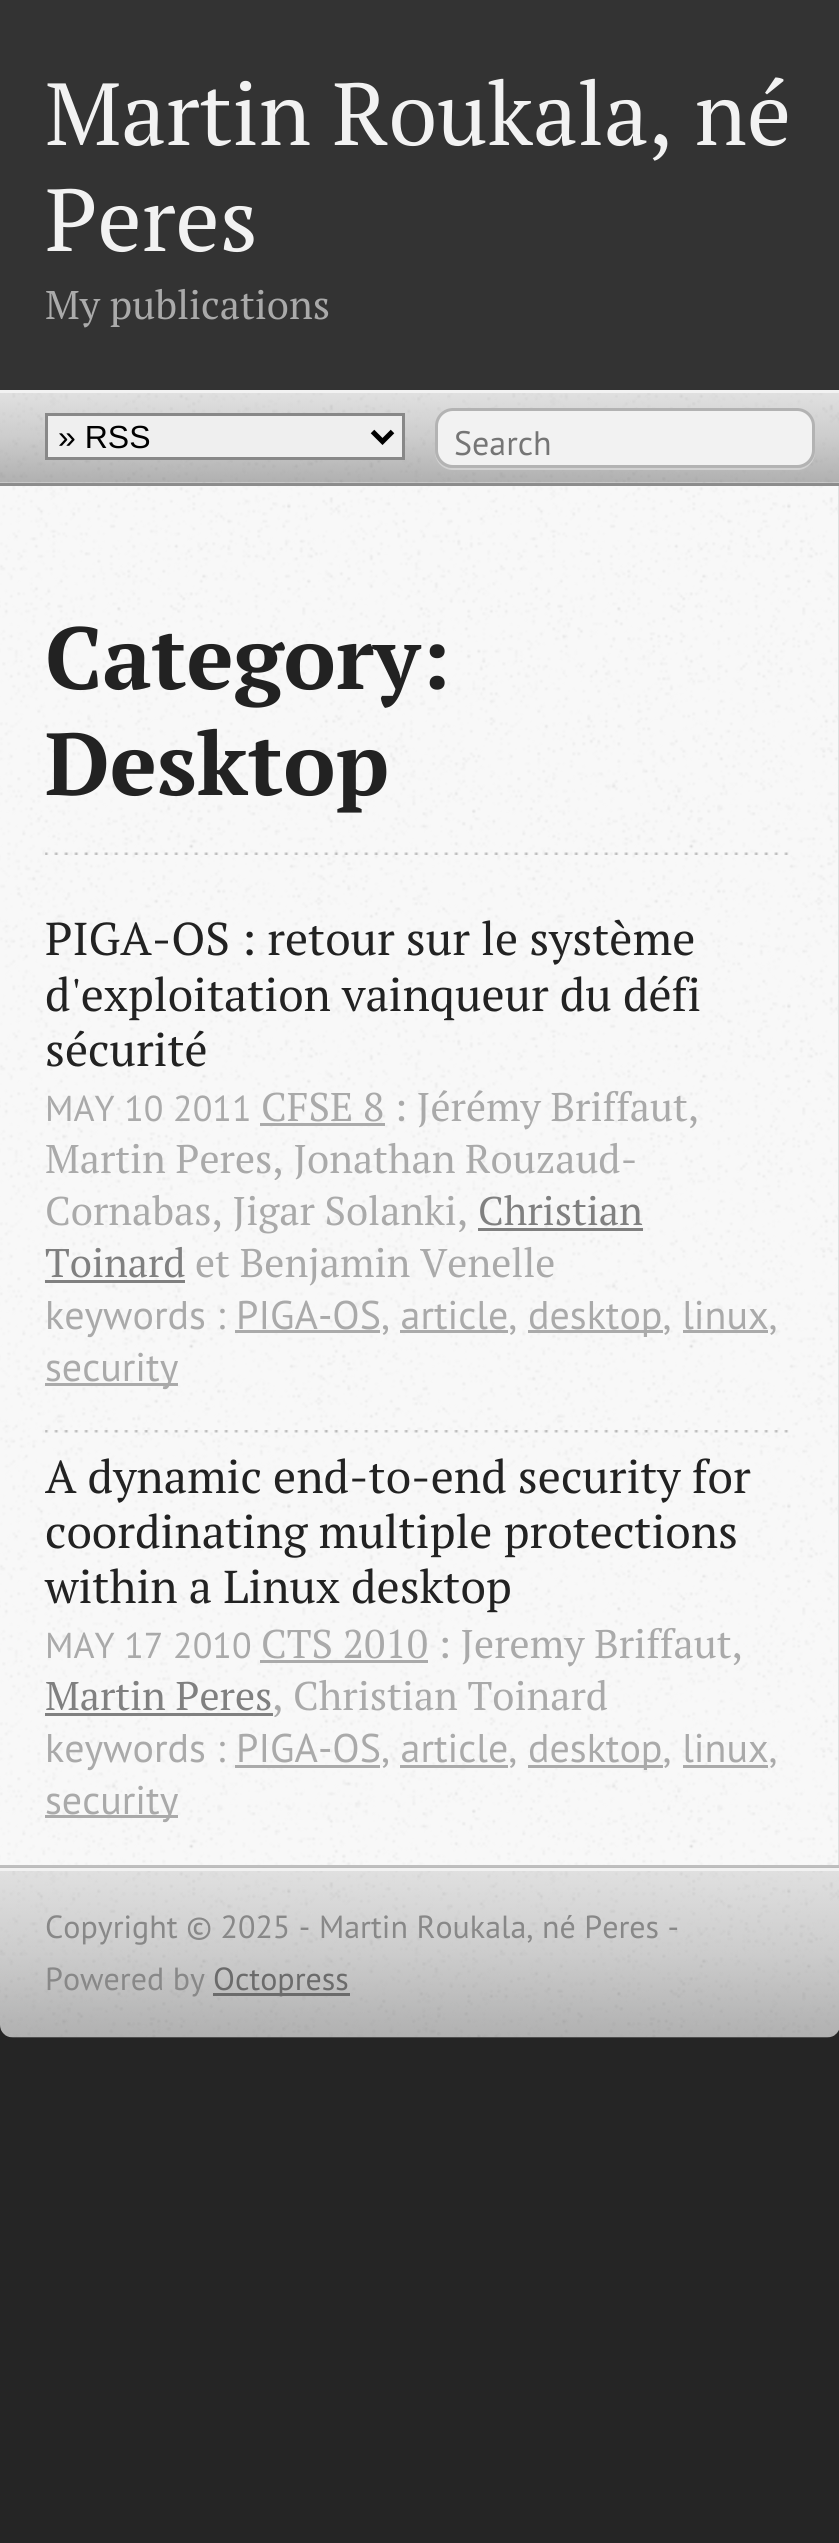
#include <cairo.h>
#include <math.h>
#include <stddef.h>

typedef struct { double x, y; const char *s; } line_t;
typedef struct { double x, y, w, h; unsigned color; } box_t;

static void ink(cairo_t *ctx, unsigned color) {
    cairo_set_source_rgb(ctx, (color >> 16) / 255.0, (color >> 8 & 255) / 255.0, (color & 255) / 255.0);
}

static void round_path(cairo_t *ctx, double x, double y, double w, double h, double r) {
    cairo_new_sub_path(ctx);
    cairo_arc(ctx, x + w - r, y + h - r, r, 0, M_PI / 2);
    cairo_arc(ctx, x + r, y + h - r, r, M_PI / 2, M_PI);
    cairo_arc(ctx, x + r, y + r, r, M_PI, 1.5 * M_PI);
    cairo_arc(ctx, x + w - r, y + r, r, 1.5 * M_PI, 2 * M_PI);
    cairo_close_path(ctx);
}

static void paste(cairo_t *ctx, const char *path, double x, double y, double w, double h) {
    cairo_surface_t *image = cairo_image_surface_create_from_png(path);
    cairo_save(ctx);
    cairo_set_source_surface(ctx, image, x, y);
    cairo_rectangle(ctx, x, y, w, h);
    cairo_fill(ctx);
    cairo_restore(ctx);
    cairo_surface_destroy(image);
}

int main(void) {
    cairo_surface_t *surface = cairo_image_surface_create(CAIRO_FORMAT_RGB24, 839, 2543);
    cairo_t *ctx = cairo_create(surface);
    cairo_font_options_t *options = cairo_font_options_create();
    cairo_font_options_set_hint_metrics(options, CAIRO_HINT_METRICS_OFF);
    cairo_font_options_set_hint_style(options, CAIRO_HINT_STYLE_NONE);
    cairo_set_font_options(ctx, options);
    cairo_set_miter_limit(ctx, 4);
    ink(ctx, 0x252525);
    cairo_paint(ctx);
    ink(ctx, 0x333333);
    cairo_rectangle(ctx, 0, 0, 839, 390);
    cairo_fill(ctx);
    cairo_select_font_face(ctx, "PT Serif", CAIRO_FONT_SLANT_NORMAL, CAIRO_FONT_WEIGHT_NORMAL);
    cairo_set_font_size(ctx, 88);
    ink(ctx, 0xF2F2F2);
    cairo_move_to(ctx, 45, 145);
    cairo_show_text(ctx, "Martin Roukala, né");
    cairo_move_to(ctx, 45, 251);
    cairo_show_text(ctx, "Peres");
    cairo_set_font_size(ctx, 40);
    ink(ctx, 0xAAAAAA);
    cairo_move_to(ctx, 45, 319);
    cairo_show_text(ctx, "My publications");
    paste(ctx, "media/1.png", 0, 393, 839, 90);
    {
        static const box_t items[] = {
            {0, 390, 839, 3, 0xF2F2F2},
            {838, 485, 1, 1380, 0xE0E0E0},
            {0, 483, 839, 3, 0x8C8C8C},
        };
        for (size_t i = 0; i < sizeof items / sizeof *items; i++) {
            ink(ctx, items[i].color);
            cairo_rectangle(ctx, items[i].x, items[i].y, items[i].w, items[i].h);
            cairo_fill(ctx);
        }
    }
    ink(ctx, 0xEFEFEF);
    cairo_rectangle(ctx, 46.5, 414.5, 357, 44);
    cairo_fill_preserve(ctx);
    ink(ctx, 0x888888);
    cairo_set_line_width(ctx, 3);
    cairo_stroke(ctx);
    cairo_new_path(ctx);
    cairo_move_to(ctx, 372.5, 431.5);
    cairo_line_to(ctx, 382.5, 441.5);
    cairo_line_to(ctx, 392.5, 431.5);
    ink(ctx, 0x000000);
    cairo_set_line_width(ctx, 5);
    cairo_stroke(ctx);
    cairo_select_font_face(ctx, "Liberation Sans", CAIRO_FONT_SLANT_NORMAL, CAIRO_FONT_WEIGHT_NORMAL);
    cairo_set_font_size(ctx, 32);
    cairo_move_to(ctx, 58, 448);
    cairo_show_text(ctx, "» RSS");
    ink(ctx, 0xD1D1D1);
    cairo_new_path(ctx);
    cairo_move_to(ctx, 435, 450);
    cairo_line_to(ctx, 435, 452);
    cairo_curve_to(ctx, 435, 462, 443, 470, 453, 470);
    cairo_line_to(ctx, 797, 470);
    cairo_curve_to(ctx, 807, 470, 815, 462, 815, 452);
    cairo_line_to(ctx, 815, 450);
    cairo_curve_to(ctx, 815, 460, 807, 468, 798, 468);
    cairo_line_to(ctx, 452, 468);
    cairo_curve_to(ctx, 443, 468, 435, 460, 435, 450);
    cairo_close_path(ctx);
    cairo_fill(ctx);
    ink(ctx, 0xF2F2F2);
    round_path(ctx, 436.5, 409.5, 377, 57, 16.5);
    cairo_fill_preserve(ctx);
    ink(ctx, 0xB3B3B3);
    cairo_set_line_width(ctx, 3);
    cairo_stroke(ctx);
    cairo_select_font_face(ctx, "PT Sans", CAIRO_FONT_SLANT_NORMAL, CAIRO_FONT_WEIGHT_NORMAL);
    cairo_set_font_size(ctx, 34);
    ink(ctx, 0x757575);
    cairo_move_to(ctx, 454, 455);
    cairo_show_text(ctx, "Search");
    ink(ctx, 0xBFBFBF);
    cairo_rectangle(ctx, 0, 1865, 839, 3);
    cairo_fill(ctx);
    ink(ctx, 0xF8F8F8);
    cairo_rectangle(ctx, 0, 486, 838, 1379);
    cairo_fill(ctx);
    paste(ctx, "media/2.png", 0, 486, 838, 1379);
    paste(ctx, "media/3.png", 45, 852, 744, 3);
    cairo_select_font_face(ctx, "PT Serif", CAIRO_FONT_SLANT_NORMAL, CAIRO_FONT_WEIGHT_BOLD);
    cairo_set_font_size(ctx, 88);
    ink(ctx, 0x222222);
    cairo_move_to(ctx, 45, 689);
    cairo_show_text(ctx, "Category:");
    cairo_move_to(ctx, 45, 795);
    cairo_show_text(ctx, "Desktop");
    paste(ctx, "media/4.png", 45, 1430, 744, 3);
    cairo_select_font_face(ctx, "PT Serif", CAIRO_FONT_SLANT_NORMAL, CAIRO_FONT_WEIGHT_NORMAL);
    cairo_set_font_size(ctx, 46);
    {
        static const line_t items[] = {
            {45, 955, "PIGA-OS : retour sur le système"},
            {45, 1011, "d'exploitation vainqueur du défi"},
            {45, 1066, "sécurité"},
        };
        for (size_t i = 0; i < sizeof items / sizeof *items; i++) {
            cairo_move_to(ctx, items[i].x, items[i].y);
            cairo_show_text(ctx, items[i].s);
        }
    }
    cairo_select_font_face(ctx, "PT Sans", CAIRO_FONT_SLANT_NORMAL, CAIRO_FONT_WEIGHT_NORMAL);
    cairo_set_font_size(ctx, 36);
    ink(ctx, 0xAAAAAA);
    cairo_move_to(ctx, 45, 1121);
    cairo_show_text(ctx, "MAY 10 2011");
    cairo_rectangle(ctx, 260, 1123, 125, 3);
    cairo_fill(ctx);
    cairo_select_font_face(ctx, "PT Serif", CAIRO_FONT_SLANT_NORMAL, CAIRO_FONT_WEIGHT_NORMAL);
    cairo_set_font_size(ctx, 40);
    {
        static const line_t items[] = {
            {261, 1121, "CFSE 8 : Jérémy Briffaut,"},
            {45, 1173, "Martin Peres, Jonathan Rouzaud-"},
            {45, 1225, "Cornabas, Jigar Solanki,"},
        };
        for (size_t i = 0; i < sizeof items / sizeof *items; i++) {
            cairo_move_to(ctx, items[i].x, items[i].y);
            cairo_show_text(ctx, items[i].s);
        }
    }
    ink(ctx, 0x808080);
    cairo_move_to(ctx, 478, 1225);
    cairo_show_text(ctx, "Christian");
    cairo_rectangle(ctx, 478, 1228, 165, 3);
    cairo_fill(ctx);
    cairo_move_to(ctx, 45, 1277);
    cairo_show_text(ctx, "Toinard");
    cairo_rectangle(ctx, 45, 1280, 140, 3);
    cairo_fill(ctx);
    ink(ctx, 0xAAAAAA);
    cairo_move_to(ctx, 195, 1277);
    cairo_show_text(ctx, "et Benjamin Venelle");
    cairo_select_font_face(ctx, "PT Sans", CAIRO_FONT_SLANT_NORMAL, CAIRO_FONT_WEIGHT_NORMAL);
    cairo_move_to(ctx, 45, 1329);
    cairo_show_text(ctx, "keywords : PIGA-OS, article,");
    {
        static const box_t items[] = {
            {235, 1330, 145, 3, 0xAAAAAA},
            {400, 1330, 108, 3, 0xAAAAAA},
            {528, 1330, 135, 3, 0xAAAAAA},
        };
        for (size_t i = 0; i < sizeof items / sizeof *items; i++) {
            ink(ctx, items[i].color);
            cairo_rectangle(ctx, items[i].x, items[i].y, items[i].w, items[i].h);
            cairo_fill(ctx);
        }
    }
    cairo_move_to(ctx, 528, 1329);
    cairo_show_text(ctx, "desktop, linux,");
    cairo_rectangle(ctx, 683, 1330, 85, 3);
    cairo_fill(ctx);
    cairo_rectangle(ctx, 45, 1383, 133, 3);
    cairo_fill(ctx);
    cairo_move_to(ctx, 45, 1381);
    cairo_show_text(ctx, "security");
    cairo_select_font_face(ctx, "PT Serif", CAIRO_FONT_SLANT_NORMAL, CAIRO_FONT_WEIGHT_NORMAL);
    cairo_set_font_size(ctx, 46);
    ink(ctx, 0x222222);
    {
        static const line_t items[] = {
            {45, 1493, "A dynamic end-to-end security for"},
            {45, 1548, "coordinating multiple protections"},
            {45, 1603, "within a Linux desktop"},
        };
        for (size_t i = 0; i < sizeof items / sizeof *items; i++) {
            cairo_move_to(ctx, items[i].x, items[i].y);
            cairo_show_text(ctx, items[i].s);
        }
    }
    cairo_select_font_face(ctx, "PT Sans", CAIRO_FONT_SLANT_NORMAL, CAIRO_FONT_WEIGHT_NORMAL);
    cairo_set_font_size(ctx, 36);
    ink(ctx, 0xAAAAAA);
    cairo_move_to(ctx, 45, 1658);
    cairo_show_text(ctx, "MAY 17 2010");
    cairo_rectangle(ctx, 260, 1660, 168, 3);
    cairo_fill(ctx);
    cairo_select_font_face(ctx, "PT Serif", CAIRO_FONT_SLANT_NORMAL, CAIRO_FONT_WEIGHT_NORMAL);
    cairo_set_font_size(ctx, 40);
    cairo_move_to(ctx, 261, 1658);
    cairo_show_text(ctx, "CTS 2010 : Jeremy Briffaut,");
    ink(ctx, 0x808080);
    cairo_move_to(ctx, 45, 1710);
    cairo_show_text(ctx, "Martin Peres");
    cairo_rectangle(ctx, 45, 1713, 228, 3);
    cairo_fill(ctx);
    ink(ctx, 0xAAAAAA);
    cairo_move_to(ctx, 272, 1710);
    cairo_show_text(ctx, ", Christian Toinard");
    cairo_select_font_face(ctx, "PT Sans", CAIRO_FONT_SLANT_NORMAL, CAIRO_FONT_WEIGHT_NORMAL);
    cairo_move_to(ctx, 45, 1762);
    cairo_show_text(ctx, "keywords : PIGA-OS, article,");
    {
        static const box_t items[] = {
            {235, 1765, 145, 3, 0xAAAAAA},
            {400, 1765, 108, 3, 0xAAAAAA},
            {528, 1765, 135, 3, 0xAAAAAA},
        };
        for (size_t i = 0; i < sizeof items / sizeof *items; i++) {
            ink(ctx, items[i].color);
            cairo_rectangle(ctx, items[i].x, items[i].y, items[i].w, items[i].h);
            cairo_fill(ctx);
        }
    }
    cairo_move_to(ctx, 528, 1762);
    cairo_show_text(ctx, "desktop, linux,");
    cairo_rectangle(ctx, 683, 1765, 85, 3);
    cairo_fill(ctx);
    cairo_rectangle(ctx, 45, 1815, 133, 3);
    cairo_fill(ctx);
    cairo_move_to(ctx, 45, 1814);
    cairo_show_text(ctx, "security");
    paste(ctx, "media/5.png", 0, 1867, 839, 171);
    ink(ctx, 0xF2F2F2);
    cairo_rectangle(ctx, 0, 1868, 839, 3);
    cairo_fill(ctx);
    cairo_set_font_size(ctx, 32);
    ink(ctx, 0x888888);
    cairo_move_to(ctx, 45, 1938);
    cairo_show_text(ctx, "Copyright © 2025 - Martin Roukala, né Peres -");
    cairo_move_to(ctx, 45, 1990);
    cairo_show_text(ctx, "Powered by");
    ink(ctx, 0x6B6B6B);
    cairo_rectangle(ctx, 213, 1993, 137, 3);
    cairo_fill(ctx);
    cairo_move_to(ctx, 213, 1990);
    cairo_show_text(ctx, "Octopress");
    cairo_surface_write_to_png(surface, "image.png");
    cairo_font_options_destroy(options);
    cairo_destroy(ctx);
    cairo_surface_destroy(surface);
    return 0;
}
